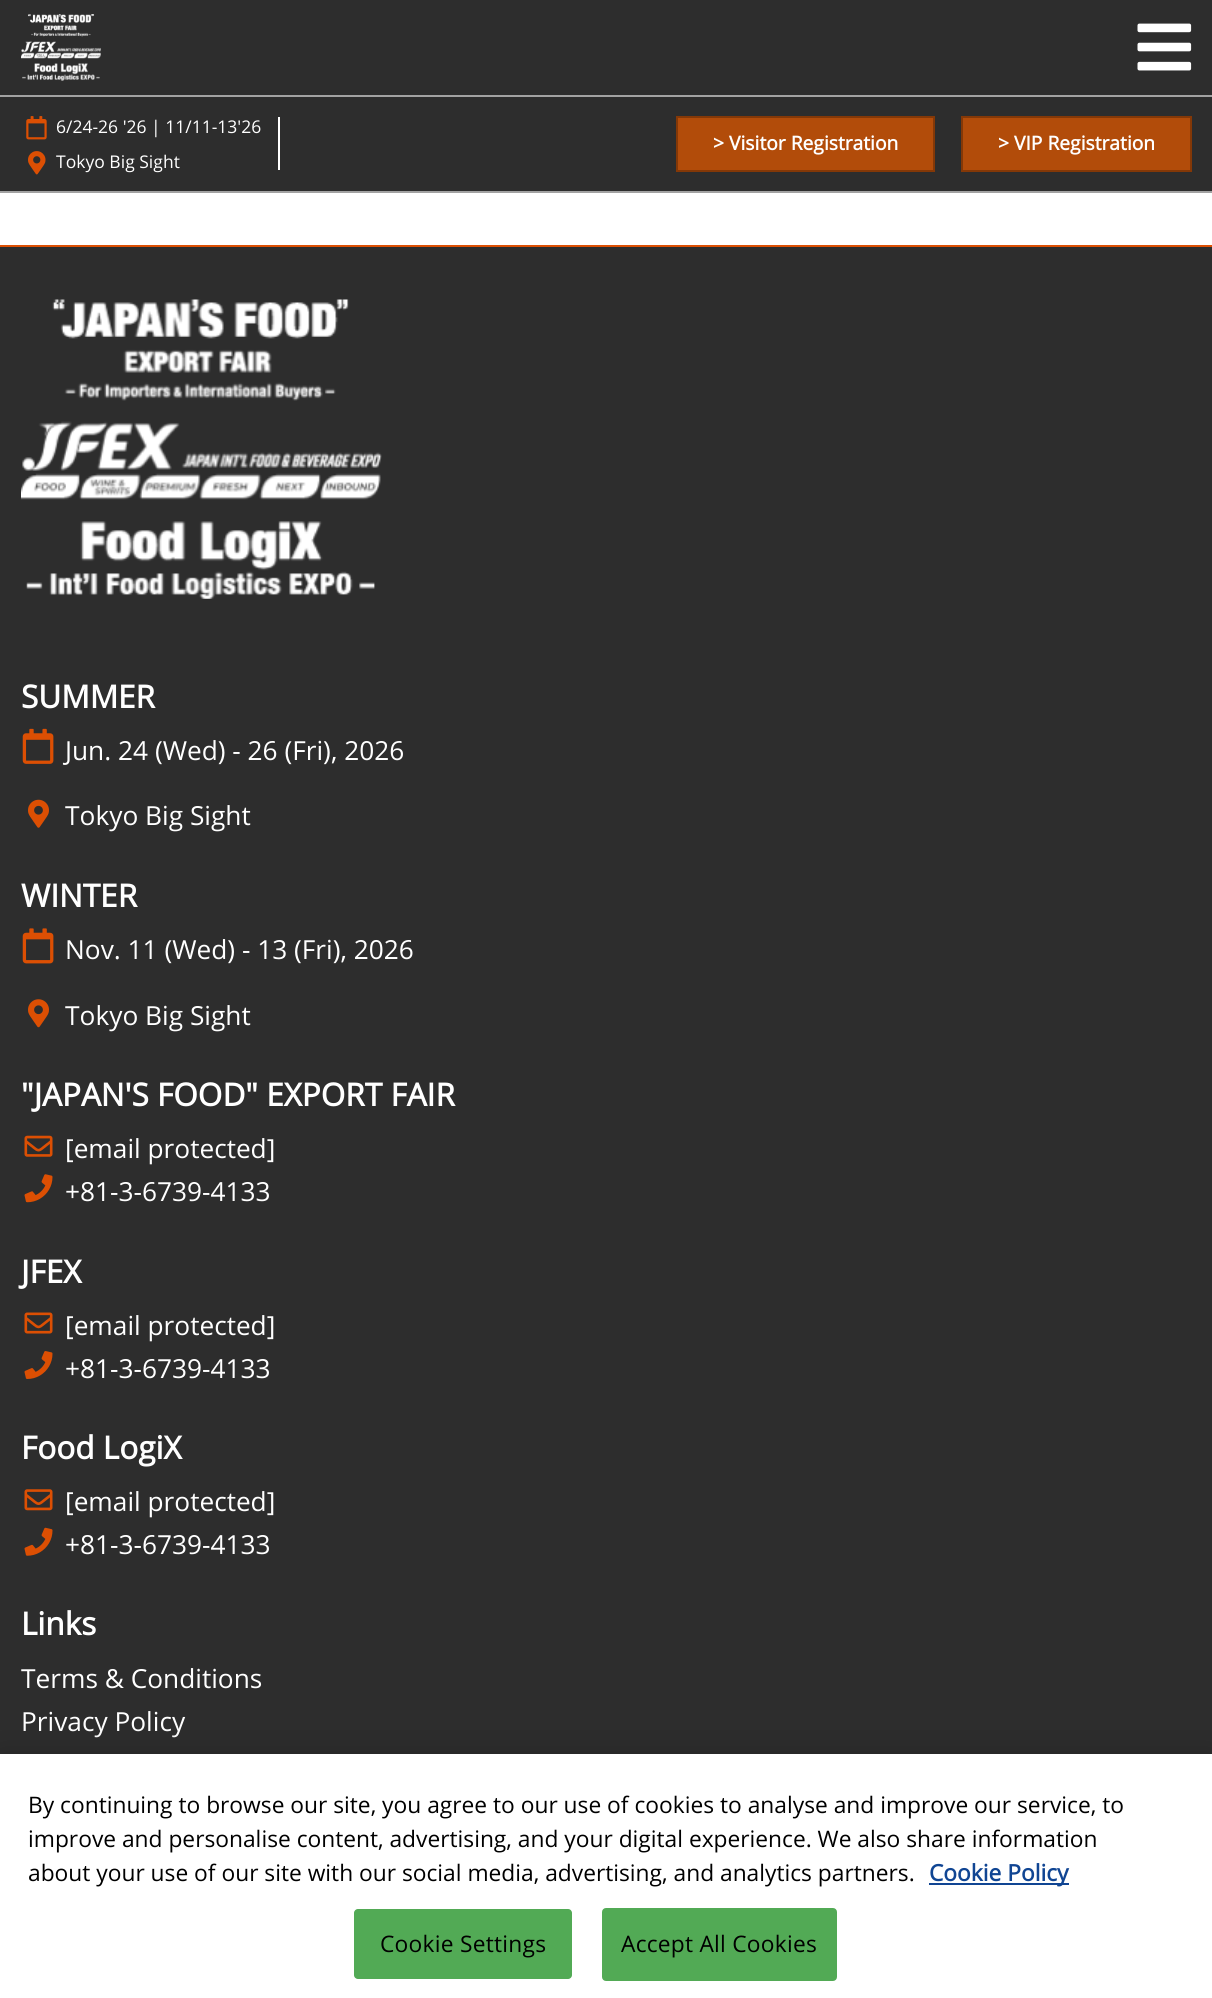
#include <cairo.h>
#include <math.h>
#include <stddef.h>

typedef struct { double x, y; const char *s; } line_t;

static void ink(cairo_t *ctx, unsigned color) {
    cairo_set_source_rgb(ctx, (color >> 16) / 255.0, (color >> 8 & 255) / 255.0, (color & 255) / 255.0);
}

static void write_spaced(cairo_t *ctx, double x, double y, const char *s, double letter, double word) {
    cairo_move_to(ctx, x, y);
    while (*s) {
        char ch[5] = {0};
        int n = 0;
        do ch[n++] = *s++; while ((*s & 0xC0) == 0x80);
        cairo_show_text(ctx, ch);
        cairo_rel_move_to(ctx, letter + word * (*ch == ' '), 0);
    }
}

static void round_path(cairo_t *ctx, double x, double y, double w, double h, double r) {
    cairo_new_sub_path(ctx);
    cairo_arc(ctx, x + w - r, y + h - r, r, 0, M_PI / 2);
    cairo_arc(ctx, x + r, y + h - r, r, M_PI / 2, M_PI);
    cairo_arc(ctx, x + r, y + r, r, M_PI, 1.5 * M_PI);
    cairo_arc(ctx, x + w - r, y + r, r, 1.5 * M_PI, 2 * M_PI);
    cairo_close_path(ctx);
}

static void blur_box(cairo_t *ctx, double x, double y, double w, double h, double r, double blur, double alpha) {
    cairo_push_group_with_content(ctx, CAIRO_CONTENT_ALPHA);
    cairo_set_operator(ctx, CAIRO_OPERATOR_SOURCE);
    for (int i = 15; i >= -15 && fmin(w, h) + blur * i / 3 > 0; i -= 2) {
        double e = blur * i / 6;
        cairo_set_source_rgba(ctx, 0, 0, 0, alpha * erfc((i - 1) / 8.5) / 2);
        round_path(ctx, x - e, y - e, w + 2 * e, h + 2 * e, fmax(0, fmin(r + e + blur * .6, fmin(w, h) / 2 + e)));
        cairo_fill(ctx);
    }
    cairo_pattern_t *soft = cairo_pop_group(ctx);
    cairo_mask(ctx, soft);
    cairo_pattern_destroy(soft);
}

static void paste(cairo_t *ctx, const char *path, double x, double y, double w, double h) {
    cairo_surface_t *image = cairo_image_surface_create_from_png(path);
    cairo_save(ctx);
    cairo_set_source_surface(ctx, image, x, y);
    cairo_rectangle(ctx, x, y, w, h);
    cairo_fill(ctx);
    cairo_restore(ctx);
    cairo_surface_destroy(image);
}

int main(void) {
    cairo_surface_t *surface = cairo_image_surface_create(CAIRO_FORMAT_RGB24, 1212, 1998);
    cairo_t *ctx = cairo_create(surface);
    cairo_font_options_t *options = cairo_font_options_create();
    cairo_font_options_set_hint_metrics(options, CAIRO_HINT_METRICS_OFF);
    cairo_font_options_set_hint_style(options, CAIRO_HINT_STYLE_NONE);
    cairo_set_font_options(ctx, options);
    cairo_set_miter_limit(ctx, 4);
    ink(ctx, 0xFFFFFF);
    cairo_paint(ctx);
    ink(ctx, 0x2D2D2D);
    cairo_rectangle(ctx, 0, 0, 1212, 191);
    cairo_fill(ctx);
    ink(ctx, 0xA2A2A2);
    cairo_rectangle(ctx, 0, 95, 1212, 2);
    cairo_fill(ctx);
    paste(ctx, "media/1.png", 21, 14, 80, 67);
    paste(ctx, "media/2.png", 1137, 23, 55, 48);
    cairo_rectangle(ctx, 0, 191, 1212, 2);
    cairo_fill(ctx);
    ink(ctx, 0xFFFFFF);
    cairo_rectangle(ctx, 278, 117, 2, 53);
    cairo_fill(ctx);
    paste(ctx, "media/3.png", 26, 116, 21, 24);
    cairo_select_font_face(ctx, "Open Sans", CAIRO_FONT_SLANT_NORMAL, CAIRO_FONT_WEIGHT_NORMAL);
    cairo_set_font_size(ctx, 17.5);
    cairo_move_to(ctx, 56, 133);
    cairo_show_text(ctx, "6/24-26 '26 | 11/11-13'26");
    paste(ctx, "media/4.png", 28, 151, 18, 24);
    cairo_move_to(ctx, 56, 168);
    cairo_show_text(ctx, "Tokyo Big Sight");
    ink(ctx, 0xB24C0A);
    cairo_rectangle(ctx, 677, 117, 257, 54);
    cairo_fill_preserve(ctx);
    ink(ctx, 0x843807);
    cairo_stroke(ctx);
    cairo_select_font_face(ctx, "Open Sans", CAIRO_FONT_SLANT_NORMAL, CAIRO_FONT_WEIGHT_BOLD);
    cairo_set_font_size(ctx, 19.25);
    ink(ctx, 0xFFFFFF);
    cairo_move_to(ctx, 713, 150);
    cairo_show_text(ctx, "> Visitor Registration");
    ink(ctx, 0xB24C0A);
    cairo_rectangle(ctx, 962, 117, 229, 54);
    cairo_fill_preserve(ctx);
    ink(ctx, 0x843807);
    cairo_stroke(ctx);
    ink(ctx, 0xFFFFFF);
    cairo_move_to(ctx, 998, 150);
    cairo_show_text(ctx, "> VIP Registration");
    ink(ctx, 0x2D2D2D);
    cairo_rectangle(ctx, 0, 247, 1212, 1507);
    cairo_fill(ctx);
    ink(ctx, 0xDC4F03);
    cairo_rectangle(ctx, 0, 245, 1212, 2);
    cairo_fill(ctx);
    paste(ctx, "media/5.png", 21, 299, 361, 300);
    cairo_set_font_size(ctx, 31.5);
    ink(ctx, 0xFFFFFF);
    cairo_move_to(ctx, 21, 708);
    cairo_show_text(ctx, "SUMMER");
    paste(ctx, "media/6.png", 22, 728, 32, 36);
    cairo_select_font_face(ctx, "Open Sans", CAIRO_FONT_SLANT_NORMAL, CAIRO_FONT_WEIGHT_NORMAL);
    cairo_set_font_size(ctx, 26.25);
    cairo_move_to(ctx, 65, 760);
    cairo_show_text(ctx, "Jun. 24 (Wed) - 26 (Fri), 2026");
    paste(ctx, "media/7.png", 28, 799, 21, 29);
    cairo_move_to(ctx, 65, 825);
    cairo_show_text(ctx, "Tokyo Big Sight");
    cairo_select_font_face(ctx, "Open Sans", CAIRO_FONT_SLANT_NORMAL, CAIRO_FONT_WEIGHT_BOLD);
    cairo_set_font_size(ctx, 31.5);
    cairo_move_to(ctx, 21, 907);
    cairo_show_text(ctx, "WINTER");
    paste(ctx, "media/8.png", 22, 928, 32, 36);
    cairo_select_font_face(ctx, "Open Sans", CAIRO_FONT_SLANT_NORMAL, CAIRO_FONT_WEIGHT_NORMAL);
    cairo_set_font_size(ctx, 26.25);
    cairo_move_to(ctx, 65, 959);
    cairo_show_text(ctx, "Nov. 11 (Wed) - 13 (Fri), 2026");
    paste(ctx, "media/9.png", 28, 999, 21, 29);
    cairo_move_to(ctx, 65, 1025);
    cairo_show_text(ctx, "Tokyo Big Sight");
    cairo_select_font_face(ctx, "Open Sans", CAIRO_FONT_SLANT_NORMAL, CAIRO_FONT_WEIGHT_BOLD);
    cairo_set_font_size(ctx, 31.5);
    cairo_move_to(ctx, 21, 1106);
    cairo_show_text(ctx, "\"JAPAN'S FOOD\" EXPORT FAIR");
    paste(ctx, "media/10.png", 24, 1135, 29, 22);
    cairo_select_font_face(ctx, "Open Sans", CAIRO_FONT_SLANT_NORMAL, CAIRO_FONT_WEIGHT_NORMAL);
    cairo_set_font_size(ctx, 26.25);
    cairo_move_to(ctx, 65, 1158);
    cairo_show_text(ctx, "[email protected]");
    paste(ctx, "media/11.png", 24, 1174, 29, 29);
    cairo_move_to(ctx, 65, 1201);
    cairo_show_text(ctx, "+81-3-6739-4133");
    cairo_select_font_face(ctx, "Open Sans", CAIRO_FONT_SLANT_NORMAL, CAIRO_FONT_WEIGHT_BOLD);
    cairo_set_font_size(ctx, 31.5);
    cairo_move_to(ctx, 21, 1283);
    cairo_show_text(ctx, "JFEX");
    paste(ctx, "media/12.png", 24, 1312, 29, 22);
    cairo_select_font_face(ctx, "Open Sans", CAIRO_FONT_SLANT_NORMAL, CAIRO_FONT_WEIGHT_NORMAL);
    cairo_set_font_size(ctx, 26.25);
    cairo_move_to(ctx, 65, 1335);
    cairo_show_text(ctx, "[email protected]");
    paste(ctx, "media/13.png", 24, 1351, 29, 28);
    cairo_move_to(ctx, 65, 1378);
    cairo_show_text(ctx, "+81-3-6739-4133");
    cairo_select_font_face(ctx, "Open Sans", CAIRO_FONT_SLANT_NORMAL, CAIRO_FONT_WEIGHT_BOLD);
    cairo_set_font_size(ctx, 31.5);
    cairo_move_to(ctx, 21, 1459);
    cairo_show_text(ctx, "Food LogiX");
    paste(ctx, "media/14.png", 24, 1489, 29, 22);
    cairo_select_font_face(ctx, "Open Sans", CAIRO_FONT_SLANT_NORMAL, CAIRO_FONT_WEIGHT_NORMAL);
    cairo_set_font_size(ctx, 26.25);
    cairo_move_to(ctx, 65, 1511);
    cairo_show_text(ctx, "[email protected]");
    paste(ctx, "media/15.png", 24, 1527, 29, 29);
    cairo_move_to(ctx, 65, 1554);
    cairo_show_text(ctx, "+81-3-6739-4133");
    cairo_select_font_face(ctx, "Open Sans", CAIRO_FONT_SLANT_NORMAL, CAIRO_FONT_WEIGHT_BOLD);
    cairo_set_font_size(ctx, 31.5);
    cairo_move_to(ctx, 21, 1635);
    cairo_show_text(ctx, "Links");
    cairo_select_font_face(ctx, "Open Sans", CAIRO_FONT_SLANT_NORMAL, CAIRO_FONT_WEIGHT_NORMAL);
    cairo_set_font_size(ctx, 26.25);
    cairo_move_to(ctx, 21, 1688);
    cairo_show_text(ctx, "Terms & Conditions");
    cairo_move_to(ctx, 21, 1731);
    cairo_show_text(ctx, "Privacy Policy");
    ink(ctx, 0x000000);
    blur_box(ctx, 0, 1754, 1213, 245, 0, 16, 0.2);
    ink(ctx, 0xFFFFFF);
    cairo_rectangle(ctx, 0, 1754, 1212, 244);
    cairo_fill(ctx);
    cairo_set_font_size(ctx, 22.75);
    ink(ctx, 0x000000);
    {
        static const line_t items[] = {
            {28, 1813, "By continuing to browse our site, you agree to our use of cookies to analyse and improve our service, to"},
            {28, 1847, "improve and personalise content, advertising, and your digital experience. We also share information"},
            {28, 1881, "about your use of our site with our social media, advertising, and analytics partners."},
        };
        for (size_t i = 0; i < sizeof items / sizeof *items; i++) {
            cairo_move_to(ctx, items[i].x, items[i].y);
            cairo_show_text(ctx, items[i].s);
        }
    }
    ink(ctx, 0x104593);
    cairo_rectangle(ctx, 929, 1883, 140, 2);
    cairo_fill(ctx);
    cairo_select_font_face(ctx, "Open Sans", CAIRO_FONT_SLANT_NORMAL, CAIRO_FONT_WEIGHT_BOLD);
    cairo_move_to(ctx, 929, 1881);
    cairo_show_text(ctx, "Cookie Policy");
    ink(ctx, 0x52AA55);
    round_path(ctx, 354, 1909, 218, 70, 4);
    cairo_fill(ctx);
    cairo_select_font_face(ctx, "Open Sans", CAIRO_FONT_SLANT_NORMAL, CAIRO_FONT_WEIGHT_NORMAL);
    ink(ctx, 0x000000);
    write_spaced(ctx, 380, 1952, "Cookie Settings", 0.25, 0);
    ink(ctx, 0x52AA55);
    round_path(ctx, 603, 1909, 233, 71, 3);
    cairo_fill_preserve(ctx);
    cairo_stroke(ctx);
    ink(ctx, 0x000000);
    write_spaced(ctx, 621, 1952, "Accept All Cookies", 0.25, 0);
    cairo_surface_write_to_png(surface, "image.png");
    cairo_font_options_destroy(options);
    cairo_destroy(ctx);
    cairo_surface_destroy(surface);
    return 0;
}
